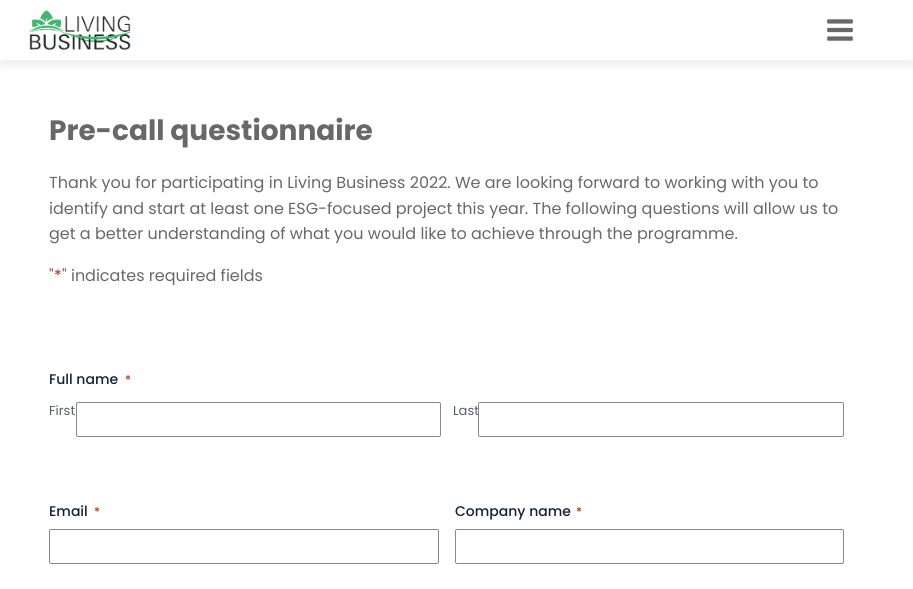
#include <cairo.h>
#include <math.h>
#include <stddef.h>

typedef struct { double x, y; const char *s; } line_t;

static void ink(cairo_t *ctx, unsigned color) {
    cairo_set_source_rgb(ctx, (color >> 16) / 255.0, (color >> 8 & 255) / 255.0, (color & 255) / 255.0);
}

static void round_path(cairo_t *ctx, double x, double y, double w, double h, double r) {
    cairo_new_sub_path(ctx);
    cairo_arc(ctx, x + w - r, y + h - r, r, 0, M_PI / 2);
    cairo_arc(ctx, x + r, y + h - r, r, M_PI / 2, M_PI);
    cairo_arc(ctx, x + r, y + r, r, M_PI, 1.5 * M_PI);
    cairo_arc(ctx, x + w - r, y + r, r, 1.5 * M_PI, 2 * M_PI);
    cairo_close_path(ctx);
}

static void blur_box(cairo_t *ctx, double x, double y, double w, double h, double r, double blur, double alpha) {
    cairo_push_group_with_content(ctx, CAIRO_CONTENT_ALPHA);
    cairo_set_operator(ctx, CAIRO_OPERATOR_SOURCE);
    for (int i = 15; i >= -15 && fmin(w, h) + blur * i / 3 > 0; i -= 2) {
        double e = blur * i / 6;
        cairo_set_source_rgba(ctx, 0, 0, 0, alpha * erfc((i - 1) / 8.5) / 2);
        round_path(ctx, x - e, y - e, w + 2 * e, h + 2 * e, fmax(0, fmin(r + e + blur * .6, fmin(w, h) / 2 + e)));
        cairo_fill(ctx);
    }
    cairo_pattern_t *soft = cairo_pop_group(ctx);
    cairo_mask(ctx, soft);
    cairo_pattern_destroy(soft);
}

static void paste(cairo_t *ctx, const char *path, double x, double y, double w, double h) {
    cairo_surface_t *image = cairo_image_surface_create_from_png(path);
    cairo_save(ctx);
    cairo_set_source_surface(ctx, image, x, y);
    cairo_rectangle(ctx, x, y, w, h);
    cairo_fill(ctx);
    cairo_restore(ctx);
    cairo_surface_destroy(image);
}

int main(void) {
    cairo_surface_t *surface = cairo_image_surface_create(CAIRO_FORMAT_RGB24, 913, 589);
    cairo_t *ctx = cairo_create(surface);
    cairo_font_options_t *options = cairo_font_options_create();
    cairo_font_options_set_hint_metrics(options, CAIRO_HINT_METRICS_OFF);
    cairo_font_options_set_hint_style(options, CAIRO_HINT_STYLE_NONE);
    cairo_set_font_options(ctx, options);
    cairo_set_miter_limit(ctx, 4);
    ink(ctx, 0xFFFFFF);
    cairo_paint(ctx);
    cairo_save(ctx);
    cairo_rectangle(ctx, 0, 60, 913, 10);
    cairo_clip(ctx);
    ink(ctx, 0x000000);
    blur_box(ctx, 0, 5, 913, 60, 0, 7.5, 0.08);
    cairo_restore(ctx);
    paste(ctx, "media/1.png", 29, 10, 102, 40);
    paste(ctx, "media/2.png", 827, 19, 26, 22);
    cairo_select_font_face(ctx, "Poppins", CAIRO_FONT_SLANT_NORMAL, CAIRO_FONT_WEIGHT_BOLD);
    cairo_set_font_size(ctx, 28);
    ink(ctx, 0x686868);
    cairo_move_to(ctx, 49, 140);
    cairo_show_text(ctx, "Pre-call questionnaire");
    cairo_select_font_face(ctx, "Poppins", CAIRO_FONT_SLANT_NORMAL, CAIRO_FONT_WEIGHT_NORMAL);
    cairo_set_font_size(ctx, 16);
    {
        static const line_t items[] = {
            {49, 188, "Thank you for participating in Living Business 2022. We are looking forward to working with you to"},
            {49, 214, "identify and start at least one ESG-focused project this year. The following questions will allow us to"},
            {49, 239, "get a better understanding of what you would like to achieve through the programme."},
            {49, 281, "\""},
        };
        for (size_t i = 0; i < sizeof items / sizeof *items; i++) {
            cairo_move_to(ctx, items[i].x, items[i].y);
            cairo_show_text(ctx, items[i].s);
        }
    }
    ink(ctx, 0xC02B0A);
    cairo_move_to(ctx, 54, 281);
    cairo_show_text(ctx, "*");
    ink(ctx, 0x686868);
    cairo_move_to(ctx, 62, 281);
    cairo_show_text(ctx, "\" indicates required fields");
    cairo_select_font_face(ctx, "Poppins Medium", CAIRO_FONT_SLANT_NORMAL, CAIRO_FONT_WEIGHT_NORMAL);
    cairo_set_font_size(ctx, 14);
    ink(ctx, 0x112337);
    cairo_move_to(ctx, 49, 384);
    cairo_show_text(ctx, "Full name");
    cairo_set_font_size(ctx, 12);
    ink(ctx, 0xC02B0A);
    cairo_move_to(ctx, 125, 384);
    cairo_show_text(ctx, "*");
    cairo_select_font_face(ctx, "Poppins", CAIRO_FONT_SLANT_NORMAL, CAIRO_FONT_WEIGHT_NORMAL);
    cairo_set_font_size(ctx, 13);
    ink(ctx, 0x585E6A);
    cairo_move_to(ctx, 49, 415);
    cairo_show_text(ctx, "First");
    round_path(ctx, 76.5, 402.5, 364, 34, 1.5);
    ink(ctx, 0x8A8886);
    cairo_set_line_width(ctx, 1);
    cairo_stroke(ctx);
    ink(ctx, 0x585E6A);
    cairo_move_to(ctx, 453, 415);
    cairo_show_text(ctx, "Last");
    round_path(ctx, 478.5, 402.5, 365, 34, 1.5);
    ink(ctx, 0x8A8886);
    cairo_stroke(ctx);
    cairo_select_font_face(ctx, "Poppins Medium", CAIRO_FONT_SLANT_NORMAL, CAIRO_FONT_WEIGHT_NORMAL);
    cairo_set_font_size(ctx, 14);
    ink(ctx, 0x112337);
    cairo_move_to(ctx, 49, 516);
    cairo_show_text(ctx, "Email");
    cairo_set_font_size(ctx, 12);
    ink(ctx, 0xC02B0A);
    cairo_move_to(ctx, 94, 516);
    cairo_show_text(ctx, "*");
    round_path(ctx, 49.5, 529.5, 389, 34, 1.5);
    ink(ctx, 0x8A8886);
    cairo_stroke(ctx);
    cairo_set_font_size(ctx, 14);
    ink(ctx, 0x112337);
    cairo_move_to(ctx, 455, 516);
    cairo_show_text(ctx, "Company name");
    cairo_set_font_size(ctx, 12);
    ink(ctx, 0xC02B0A);
    cairo_move_to(ctx, 576, 516);
    cairo_show_text(ctx, "*");
    round_path(ctx, 455.5, 529.5, 388, 34, 1.5);
    ink(ctx, 0x8A8886);
    cairo_stroke(ctx);
    cairo_surface_write_to_png(surface, "image.png");
    cairo_font_options_destroy(options);
    cairo_destroy(ctx);
    cairo_surface_destroy(surface);
    return 0;
}
